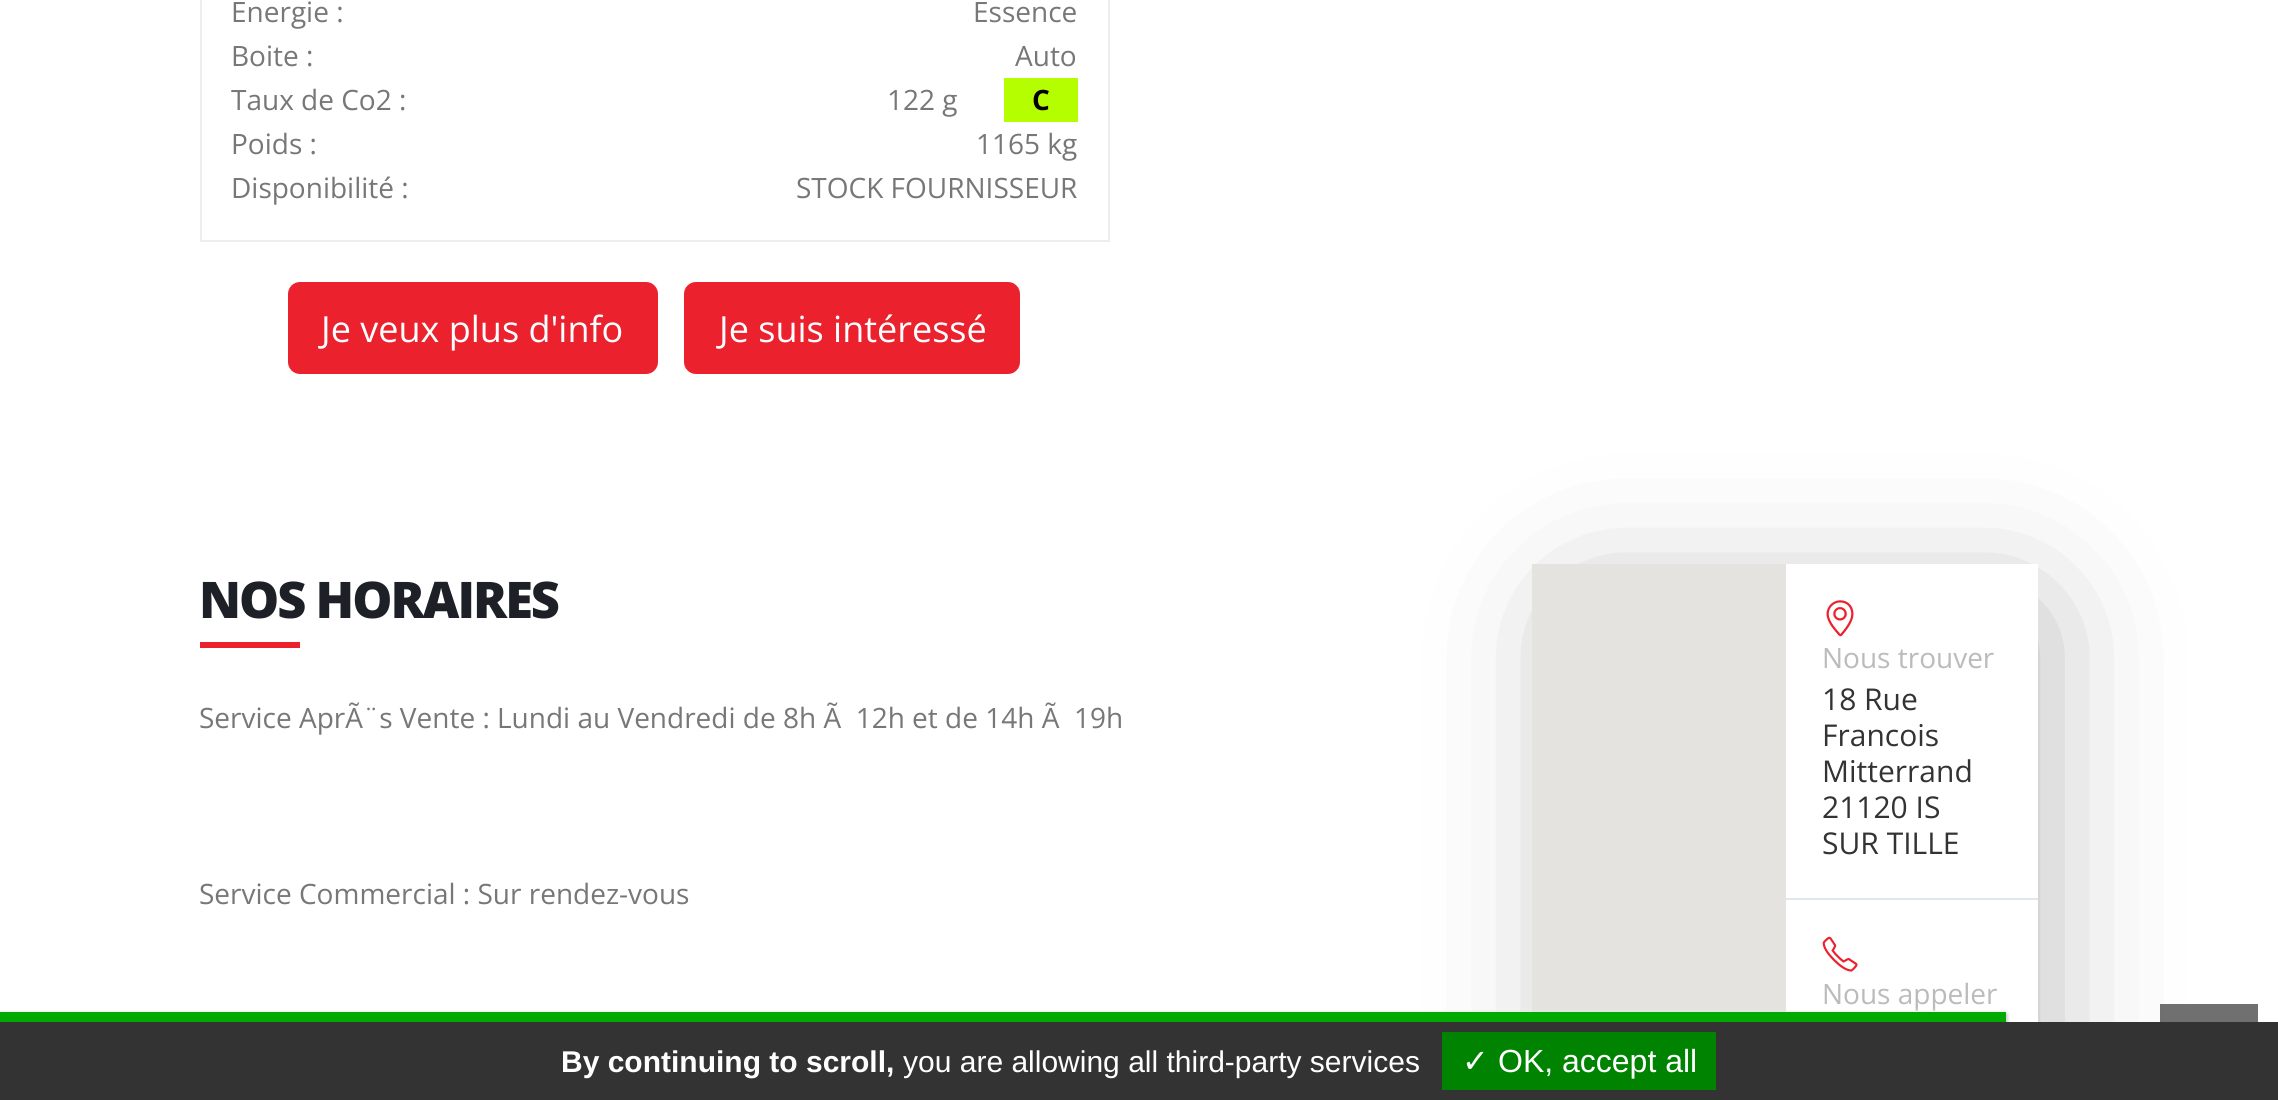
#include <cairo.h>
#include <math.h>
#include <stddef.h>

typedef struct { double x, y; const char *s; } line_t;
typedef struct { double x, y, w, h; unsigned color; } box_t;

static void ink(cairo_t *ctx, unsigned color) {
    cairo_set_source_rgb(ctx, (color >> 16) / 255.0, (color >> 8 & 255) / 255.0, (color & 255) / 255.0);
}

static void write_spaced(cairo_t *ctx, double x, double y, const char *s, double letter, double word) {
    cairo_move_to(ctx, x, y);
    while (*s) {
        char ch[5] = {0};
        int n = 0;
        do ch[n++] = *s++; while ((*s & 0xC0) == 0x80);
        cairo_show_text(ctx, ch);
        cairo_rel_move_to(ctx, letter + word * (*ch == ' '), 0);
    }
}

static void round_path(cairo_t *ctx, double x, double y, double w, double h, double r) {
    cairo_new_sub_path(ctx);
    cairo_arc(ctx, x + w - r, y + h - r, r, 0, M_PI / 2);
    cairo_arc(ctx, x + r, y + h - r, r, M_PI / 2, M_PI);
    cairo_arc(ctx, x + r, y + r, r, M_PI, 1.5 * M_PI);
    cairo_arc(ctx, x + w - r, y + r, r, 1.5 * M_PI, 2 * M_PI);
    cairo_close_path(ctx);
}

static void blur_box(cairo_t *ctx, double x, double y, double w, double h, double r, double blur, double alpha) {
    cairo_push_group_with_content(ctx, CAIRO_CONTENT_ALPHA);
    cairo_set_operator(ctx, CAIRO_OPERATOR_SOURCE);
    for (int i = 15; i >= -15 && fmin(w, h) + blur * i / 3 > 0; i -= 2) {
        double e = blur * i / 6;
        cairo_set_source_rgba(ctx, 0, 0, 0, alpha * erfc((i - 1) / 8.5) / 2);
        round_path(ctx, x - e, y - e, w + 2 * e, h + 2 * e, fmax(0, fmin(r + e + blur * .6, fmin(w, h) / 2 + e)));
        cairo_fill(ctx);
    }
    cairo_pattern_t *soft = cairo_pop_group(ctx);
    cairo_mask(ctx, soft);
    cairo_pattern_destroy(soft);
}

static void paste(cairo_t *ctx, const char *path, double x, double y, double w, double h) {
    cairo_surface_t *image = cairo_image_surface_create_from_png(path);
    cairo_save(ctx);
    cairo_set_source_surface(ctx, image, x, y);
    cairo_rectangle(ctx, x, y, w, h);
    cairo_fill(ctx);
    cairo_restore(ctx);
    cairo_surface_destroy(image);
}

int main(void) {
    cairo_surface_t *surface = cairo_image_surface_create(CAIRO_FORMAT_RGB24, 2278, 1100);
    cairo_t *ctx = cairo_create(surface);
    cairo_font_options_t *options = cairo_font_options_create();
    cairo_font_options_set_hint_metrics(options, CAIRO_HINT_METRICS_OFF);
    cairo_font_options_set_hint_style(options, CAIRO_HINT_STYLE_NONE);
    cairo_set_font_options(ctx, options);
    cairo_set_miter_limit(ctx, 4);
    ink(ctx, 0xFFFFFF);
    cairo_paint(ctx);
    {
        static const box_t items[] = {
            {1108, 0, 2, 242, 0xEEEEEE},
            {200, 240, 910, 2, 0xEEEEEE},
            {200, 0, 2, 242, 0xEEEEEE},
        };
        for (size_t i = 0; i < sizeof items / sizeof *items; i++) {
            ink(ctx, items[i].color);
            cairo_rectangle(ctx, items[i].x, items[i].y, items[i].w, items[i].h);
            cairo_fill(ctx);
        }
    }
    cairo_select_font_face(ctx, "Open Sans", CAIRO_FONT_SLANT_NORMAL, CAIRO_FONT_WEIGHT_NORMAL);
    cairo_set_font_size(ctx, 28);
    ink(ctx, 0x777777);
    {
        static const line_t items[] = {
            {231, 22, "Energie :"},
            {973, 22, "Essence"},
            {231, 66, "Boite :"},
            {1015, 66, "Auto"},
            {231, 110, "Taux de Co2 :"},
            {887, 110, "122 g"},
        };
        for (size_t i = 0; i < sizeof items / sizeof *items; i++) {
            cairo_move_to(ctx, items[i].x, items[i].y);
            cairo_show_text(ctx, items[i].s);
        }
    }
    ink(ctx, 0xB5FE00);
    cairo_rectangle(ctx, 1004, 78, 74, 44);
    cairo_fill(ctx);
    cairo_select_font_face(ctx, "Open Sans", CAIRO_FONT_SLANT_NORMAL, CAIRO_FONT_WEIGHT_BOLD);
    ink(ctx, 0x000000);
    cairo_move_to(ctx, 1032, 110);
    cairo_show_text(ctx, "C");
    cairo_select_font_face(ctx, "Open Sans", CAIRO_FONT_SLANT_NORMAL, CAIRO_FONT_WEIGHT_NORMAL);
    ink(ctx, 0x777777);
    {
        static const line_t items[] = {
            {231, 154, "Poids :"},
            {976, 154, "1165 kg"},
            {231, 198, "Disponibilité :"},
            {796, 198, "STOCK FOURNISSEUR"},
        };
        for (size_t i = 0; i < sizeof items / sizeof *items; i++) {
            cairo_move_to(ctx, items[i].x, items[i].y);
            cairo_show_text(ctx, items[i].s);
        }
    }
    ink(ctx, 0xEB212E);
    round_path(ctx, 288, 282, 370, 92, 12);
    cairo_fill(ctx);
    cairo_set_font_size(ctx, 36);
    ink(ctx, 0xFFFFFF);
    cairo_move_to(ctx, 321, 342);
    cairo_show_text(ctx, "Je veux plus d'info");
    ink(ctx, 0xEB212E);
    round_path(ctx, 684, 282, 336, 92, 12);
    cairo_fill(ctx);
    ink(ctx, 0xFFFFFF);
    cairo_move_to(ctx, 719, 342);
    cairo_show_text(ctx, "Je suis intéressé");
    cairo_select_font_face(ctx, "Open Sans ExtraBold", CAIRO_FONT_SLANT_NORMAL, CAIRO_FONT_WEIGHT_NORMAL);
    cairo_set_font_size(ctx, 50.5);
    ink(ctx, 0x1D2127);
    write_spaced(ctx, 199, 618, "NOS HORAIRES", -2, 0);
    ink(ctx, 0xEB212E);
    cairo_rectangle(ctx, 200, 642, 100, 6);
    cairo_fill(ctx);
    cairo_select_font_face(ctx, "Open Sans", CAIRO_FONT_SLANT_NORMAL, CAIRO_FONT_WEIGHT_NORMAL);
    cairo_set_font_size(ctx, 28);
    ink(ctx, 0x777777);
    cairo_move_to(ctx, 199, 728);
    cairo_show_text(ctx, "Service AprÃ¨s Vente : Lundi au Vendredi de 8h Ã  12h et de 14h Ã  19h");
    cairo_move_to(ctx, 199, 904);
    cairo_show_text(ctx, "Service Commercial : Sur rendez-vous");
    cairo_save(ctx);
    cairo_set_fill_rule(ctx, CAIRO_FILL_RULE_EVEN_ODD);
    cairo_new_path(ctx);
    cairo_move_to(ctx, 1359, 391);
    cairo_line_to(ctx, 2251, 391);
    cairo_line_to(ctx, 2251, 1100);
    cairo_line_to(ctx, 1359, 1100);
    cairo_close_path(ctx);
    cairo_move_to(ctx, 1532, 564);
    cairo_line_to(ctx, 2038, 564);
    cairo_line_to(ctx, 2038, 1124);
    cairo_line_to(ctx, 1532, 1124);
    cairo_close_path(ctx);
    cairo_clip(ctx);
    ink(ctx, 0x000000);
    blur_box(ctx, 1582, 614, 446, 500, 0, 74, 0.33);
    cairo_restore(ctx);
    ink(ctx, 0xE5E3DF);
    cairo_rectangle(ctx, 1532, 564, 254, 448);
    cairo_fill(ctx);
    ink(ctx, 0xE1E5EE);
    cairo_rectangle(ctx, 1786, 898, 252, 2);
    cairo_fill(ctx);
    paste(ctx, "media/1.png", 1826, 600, 28, 37);
    ink(ctx, 0xBBBBBB);
    cairo_move_to(ctx, 1822, 668);
    cairo_show_text(ctx, "Nous trouver");
    cairo_set_font_size(ctx, 30);
    ink(ctx, 0x333333);
    {
        static const line_t items[] = {
            {1822, 710, "18 Rue"},
            {1822, 746, "Francois"},
            {1822, 782, "Mitterrand"},
            {1822, 818, "21120 IS"},
            {1822, 854, "SUR TILLE"},
        };
        for (size_t i = 0; i < sizeof items / sizeof *items; i++) {
            cairo_move_to(ctx, items[i].x, items[i].y);
            cairo_show_text(ctx, items[i].s);
        }
    }
    paste(ctx, "media/2.png", 1822, 936, 36, 36);
    cairo_set_font_size(ctx, 28);
    ink(ctx, 0xBBBBBB);
    cairo_move_to(ctx, 1822, 1004);
    cairo_show_text(ctx, "Nous appeler");
    cairo_set_source_rgba(ctx, 0.251, 0.251, 0.251, 0.75);
    cairo_rectangle(ctx, 2160, 1004, 98, 18);
    cairo_fill(ctx);
    ink(ctx, 0x555555);
    blur_box(ctx, 0, 1014, 2006, 10, 0, 2, 1);
    ink(ctx, 0xFFFFFF);
    blur_box(ctx, 0, 1012, 2006, 10, 0, 2, 1);
    ink(ctx, 0x00AA00);
    cairo_rectangle(ctx, 0, 1012, 2006, 10);
    cairo_fill(ctx);
    ink(ctx, 0x333333);
    cairo_rectangle(ctx, 0, 1022, 2278, 78);
    cairo_fill(ctx);
    cairo_select_font_face(ctx, "Liberation Sans", CAIRO_FONT_SLANT_NORMAL, CAIRO_FONT_WEIGHT_BOLD);
    cairo_set_font_size(ctx, 30);
    ink(ctx, 0xFFFFFF);
    cairo_move_to(ctx, 561, 1072);
    cairo_show_text(ctx, "By continuing to scroll,");
    cairo_select_font_face(ctx, "Liberation Sans", CAIRO_FONT_SLANT_NORMAL, CAIRO_FONT_WEIGHT_NORMAL);
    cairo_move_to(ctx, 903, 1072);
    cairo_show_text(ctx, "you are allowing all third-party services");
    ink(ctx, 0x008300);
    cairo_rectangle(ctx, 1442, 1032, 274, 58);
    cairo_fill(ctx);
    cairo_select_font_face(ctx, "DejaVu Sans", CAIRO_FONT_SLANT_NORMAL, CAIRO_FONT_WEIGHT_NORMAL);
    cairo_set_font_size(ctx, 32);
    ink(ctx, 0xFFFFFF);
    cairo_move_to(ctx, 1462, 1072);
    cairo_show_text(ctx, "✓");
    cairo_select_font_face(ctx, "Liberation Sans", CAIRO_FONT_SLANT_NORMAL, CAIRO_FONT_WEIGHT_NORMAL);
    cairo_move_to(ctx, 1498, 1072);
    cairo_show_text(ctx, "OK, accept all");
    cairo_surface_write_to_png(surface, "image.png");
    cairo_font_options_destroy(options);
    cairo_destroy(ctx);
    cairo_surface_destroy(surface);
    return 0;
}
